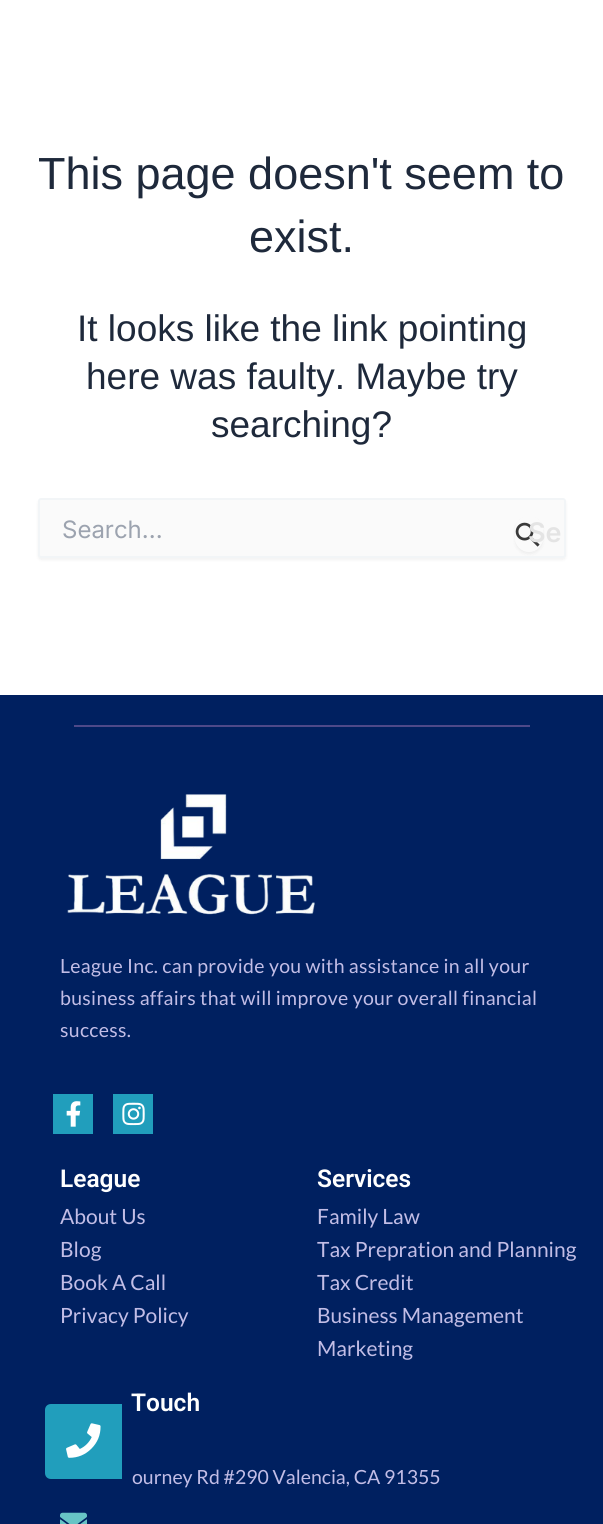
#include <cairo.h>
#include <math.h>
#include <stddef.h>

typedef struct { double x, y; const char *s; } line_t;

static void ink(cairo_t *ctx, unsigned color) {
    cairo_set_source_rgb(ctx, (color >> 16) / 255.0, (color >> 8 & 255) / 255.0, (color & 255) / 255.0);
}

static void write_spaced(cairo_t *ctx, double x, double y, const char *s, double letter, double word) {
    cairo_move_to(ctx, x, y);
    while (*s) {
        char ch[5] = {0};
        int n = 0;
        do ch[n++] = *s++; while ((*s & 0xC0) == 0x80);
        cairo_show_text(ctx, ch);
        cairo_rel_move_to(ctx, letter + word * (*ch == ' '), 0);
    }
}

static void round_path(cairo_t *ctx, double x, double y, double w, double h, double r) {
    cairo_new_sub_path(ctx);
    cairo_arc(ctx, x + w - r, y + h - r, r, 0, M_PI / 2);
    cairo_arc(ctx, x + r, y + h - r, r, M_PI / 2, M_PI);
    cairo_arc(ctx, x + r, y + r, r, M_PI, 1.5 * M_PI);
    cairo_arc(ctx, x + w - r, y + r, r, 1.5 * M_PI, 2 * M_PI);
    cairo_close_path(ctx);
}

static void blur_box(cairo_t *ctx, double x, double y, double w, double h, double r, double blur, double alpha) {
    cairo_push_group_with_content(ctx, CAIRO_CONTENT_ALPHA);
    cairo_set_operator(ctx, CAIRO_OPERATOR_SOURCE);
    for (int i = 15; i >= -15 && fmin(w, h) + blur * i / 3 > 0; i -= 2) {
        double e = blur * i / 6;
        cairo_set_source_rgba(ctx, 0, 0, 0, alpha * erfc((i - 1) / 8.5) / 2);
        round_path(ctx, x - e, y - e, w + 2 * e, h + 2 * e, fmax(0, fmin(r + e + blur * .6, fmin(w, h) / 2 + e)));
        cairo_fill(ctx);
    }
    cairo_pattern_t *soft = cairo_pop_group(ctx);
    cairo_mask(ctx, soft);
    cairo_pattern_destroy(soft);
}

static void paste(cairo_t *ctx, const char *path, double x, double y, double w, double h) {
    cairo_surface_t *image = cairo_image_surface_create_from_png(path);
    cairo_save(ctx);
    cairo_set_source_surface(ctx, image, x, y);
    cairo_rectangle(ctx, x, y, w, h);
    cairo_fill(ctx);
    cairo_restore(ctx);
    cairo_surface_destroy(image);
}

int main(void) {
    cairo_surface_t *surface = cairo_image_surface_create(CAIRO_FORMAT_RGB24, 603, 1524);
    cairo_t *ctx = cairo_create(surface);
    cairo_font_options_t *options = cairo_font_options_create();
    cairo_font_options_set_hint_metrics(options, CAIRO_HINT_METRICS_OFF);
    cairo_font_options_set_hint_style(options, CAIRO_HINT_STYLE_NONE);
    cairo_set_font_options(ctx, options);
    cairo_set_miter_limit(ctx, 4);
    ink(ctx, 0xFFFFFF);
    cairo_paint(ctx);
    cairo_select_font_face(ctx, "Liberation Sans", CAIRO_FONT_SLANT_NORMAL, CAIRO_FONT_WEIGHT_NORMAL);
    cairo_set_font_size(ctx, 45);
    ink(ctx, 0x1E293B);
    cairo_move_to(ctx, 38, 189);
    cairo_show_text(ctx, "This page doesn't seem to");
    cairo_move_to(ctx, 249, 252);
    cairo_show_text(ctx, "exist.");
    cairo_set_font_size(ctx, 37);
    {
        static const line_t items[] = {
            {77, 341, "It looks like the link pointing"},
            {86, 389, "here was faulty. Maybe try"},
            {211, 437, "searching?"},
        };
        for (size_t i = 0; i < sizeof items / sizeof *items; i++) {
            cairo_move_to(ctx, items[i].x, items[i].y);
            cairo_show_text(ctx, items[i].s);
        }
    }
    ink(ctx, 0x000000);
    blur_box(ctx, 38, 500, 528, 60, 3, 1.5, 0.05);
    ink(ctx, 0xFAFAFA);
    round_path(ctx, 39, 499, 526, 58, 2);
    cairo_fill_preserve(ctx);
    ink(ctx, 0xF2F5F7);
    cairo_stroke(ctx);
    cairo_select_font_face(ctx, "Inter", CAIRO_FONT_SLANT_NORMAL, CAIRO_FONT_WEIGHT_NORMAL);
    cairo_set_font_size(ctx, 24);
    ink(ctx, 0x9CA3AF);
    cairo_move_to(ctx, 62, 538);
    cairo_show_text(ctx, "Search...");
    cairo_save(ctx);
    cairo_set_fill_rule(ctx, CAIRO_FILL_RULE_EVEN_ODD);
    cairo_new_path(ctx);
    cairo_move_to(ctx, 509, 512);
    cairo_line_to(ctx, 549, 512);
    cairo_line_to(ctx, 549, 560);
    cairo_line_to(ctx, 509, 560);
    cairo_close_path(ctx);
    cairo_move_to(ctx, 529, 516);
    cairo_curve_to(ctx, 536.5, 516, 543, 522.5, 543, 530);
    cairo_line_to(ctx, 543, 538);
    cairo_curve_to(ctx, 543, 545.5, 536.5, 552, 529, 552);
    cairo_curve_to(ctx, 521.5, 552, 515, 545.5, 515, 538);
    cairo_line_to(ctx, 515, 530);
    cairo_curve_to(ctx, 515, 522.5, 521.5, 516, 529, 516);
    cairo_close_path(ctx);
    cairo_clip(ctx);
    ink(ctx, 0x000000);
    blur_box(ctx, 515, 518, 28, 36, 14, 1.5, 0.05);
    cairo_restore(ctx);
    paste(ctx, "media/1.png", 515, 522, 25, 25);
    cairo_select_font_face(ctx, "Inter SemiBold", CAIRO_FONT_SLANT_NORMAL, CAIRO_FONT_WEIGHT_NORMAL);
    cairo_set_font_size(ctx, 27);
    ink(ctx, 0xE4E4E4);
    cairo_move_to(ctx, 528, 542);
    cairo_show_text(ctx, "Se");
    ink(ctx, 0x002060);
    cairo_rectangle(ctx, 0, 695, 603, 829);
    cairo_fill(ctx);
    ink(ctx, 0x4E4989);
    cairo_rectangle(ctx, 74, 725, 456, 2);
    cairo_fill(ctx);
    paste(ctx, "media/2.png", 67, 794, 248, 121);
    cairo_select_font_face(ctx, "Lato", CAIRO_FONT_SLANT_NORMAL, CAIRO_FONT_WEIGHT_NORMAL);
    cairo_set_font_size(ctx, 19.5);
    ink(ctx, 0xC2BDE6);
    {
        static const line_t items[] = {
            {60, 973, "League Inc. can provide you with assistance in all your"},
            {60, 1005, "business affairs that will improve your overall financial"},
            {60, 1037, "success."},
        };
        for (size_t i = 0; i < sizeof items / sizeof *items; i++) {
            write_spaced(ctx, items[i].x, items[i].y, items[i].s, 0.3, 0);
        }
    }
    ink(ctx, 0x219EBC);
    cairo_rectangle(ctx, 53, 1094, 40, 40);
    cairo_fill(ctx);
    paste(ctx, "media/3.png", 66, 1101, 15, 26);
    cairo_rectangle(ctx, 113, 1094, 40, 40);
    cairo_fill(ctx);
    paste(ctx, "media/4.png", 122, 1102, 23, 24);
    cairo_select_font_face(ctx, "Roboto SemiBold", CAIRO_FONT_SLANT_NORMAL, CAIRO_FONT_WEIGHT_NORMAL);
    cairo_set_font_size(ctx, 24.5);
    ink(ctx, 0xFFFFFF);
    cairo_move_to(ctx, 60, 1187);
    cairo_show_text(ctx, "League");
    cairo_select_font_face(ctx, "Lato", CAIRO_FONT_SLANT_NORMAL, CAIRO_FONT_WEIGHT_NORMAL);
    cairo_set_font_size(ctx, 21);
    ink(ctx, 0xC2BDE6);
    {
        static const line_t items[] = {
            {60, 1224, "About Us"},
            {60, 1257, "Blog"},
            {60, 1290, "Book A Call"},
            {60, 1323, "Privacy Policy"},
        };
        for (size_t i = 0; i < sizeof items / sizeof *items; i++) {
            cairo_move_to(ctx, items[i].x, items[i].y);
            cairo_show_text(ctx, items[i].s);
        }
    }
    cairo_select_font_face(ctx, "Roboto SemiBold", CAIRO_FONT_SLANT_NORMAL, CAIRO_FONT_WEIGHT_NORMAL);
    cairo_set_font_size(ctx, 24.5);
    ink(ctx, 0xFFFFFF);
    cairo_move_to(ctx, 317, 1187);
    cairo_show_text(ctx, "Services");
    cairo_select_font_face(ctx, "Lato", CAIRO_FONT_SLANT_NORMAL, CAIRO_FONT_WEIGHT_NORMAL);
    cairo_set_font_size(ctx, 21);
    ink(ctx, 0xC2BDE6);
    {
        static const line_t items[] = {
            {317, 1224, "Family Law"},
            {317, 1257, "Tax Prepration and Planning"},
            {317, 1290, "Tax Credit"},
            {317, 1323, "Business Management"},
            {317, 1356, "Marketing"},
        };
        for (size_t i = 0; i < sizeof items / sizeof *items; i++) {
            cairo_move_to(ctx, items[i].x, items[i].y);
            cairo_show_text(ctx, items[i].s);
        }
    }
    cairo_select_font_face(ctx, "Roboto SemiBold", CAIRO_FONT_SLANT_NORMAL, CAIRO_FONT_WEIGHT_NORMAL);
    cairo_set_font_size(ctx, 24.5);
    ink(ctx, 0xFFFFFF);
    cairo_move_to(ctx, 131, 1411);
    cairo_show_text(ctx, "Touch");
    cairo_select_font_face(ctx, "Lato", CAIRO_FONT_SLANT_NORMAL, CAIRO_FONT_WEIGHT_NORMAL);
    cairo_set_font_size(ctx, 19.5);
    ink(ctx, 0xC2BDE6);
    cairo_move_to(ctx, 132, 1484);
    cairo_show_text(ctx, "ourney Rd #290 Valencia, CA 91355");
    paste(ctx, "media/5.png", 60, 1512, 27, 12);
    ink(ctx, 0x219EBC);
    cairo_new_path(ctx);
    cairo_move_to(ctx, 51, 1404);
    cairo_line_to(ctx, 122, 1404);
    cairo_line_to(ctx, 122, 1479);
    cairo_line_to(ctx, 51, 1479);
    cairo_curve_to(ctx, 47.5, 1479, 45, 1476.5, 45, 1473);
    cairo_line_to(ctx, 45, 1410);
    cairo_curve_to(ctx, 45, 1406.5, 47.5, 1404, 51, 1404);
    cairo_close_path(ctx);
    cairo_fill(ctx);
    paste(ctx, "media/6.png", 66, 1423, 35, 35);
    cairo_surface_write_to_png(surface, "image.png");
    cairo_font_options_destroy(options);
    cairo_destroy(ctx);
    cairo_surface_destroy(surface);
    return 0;
}
